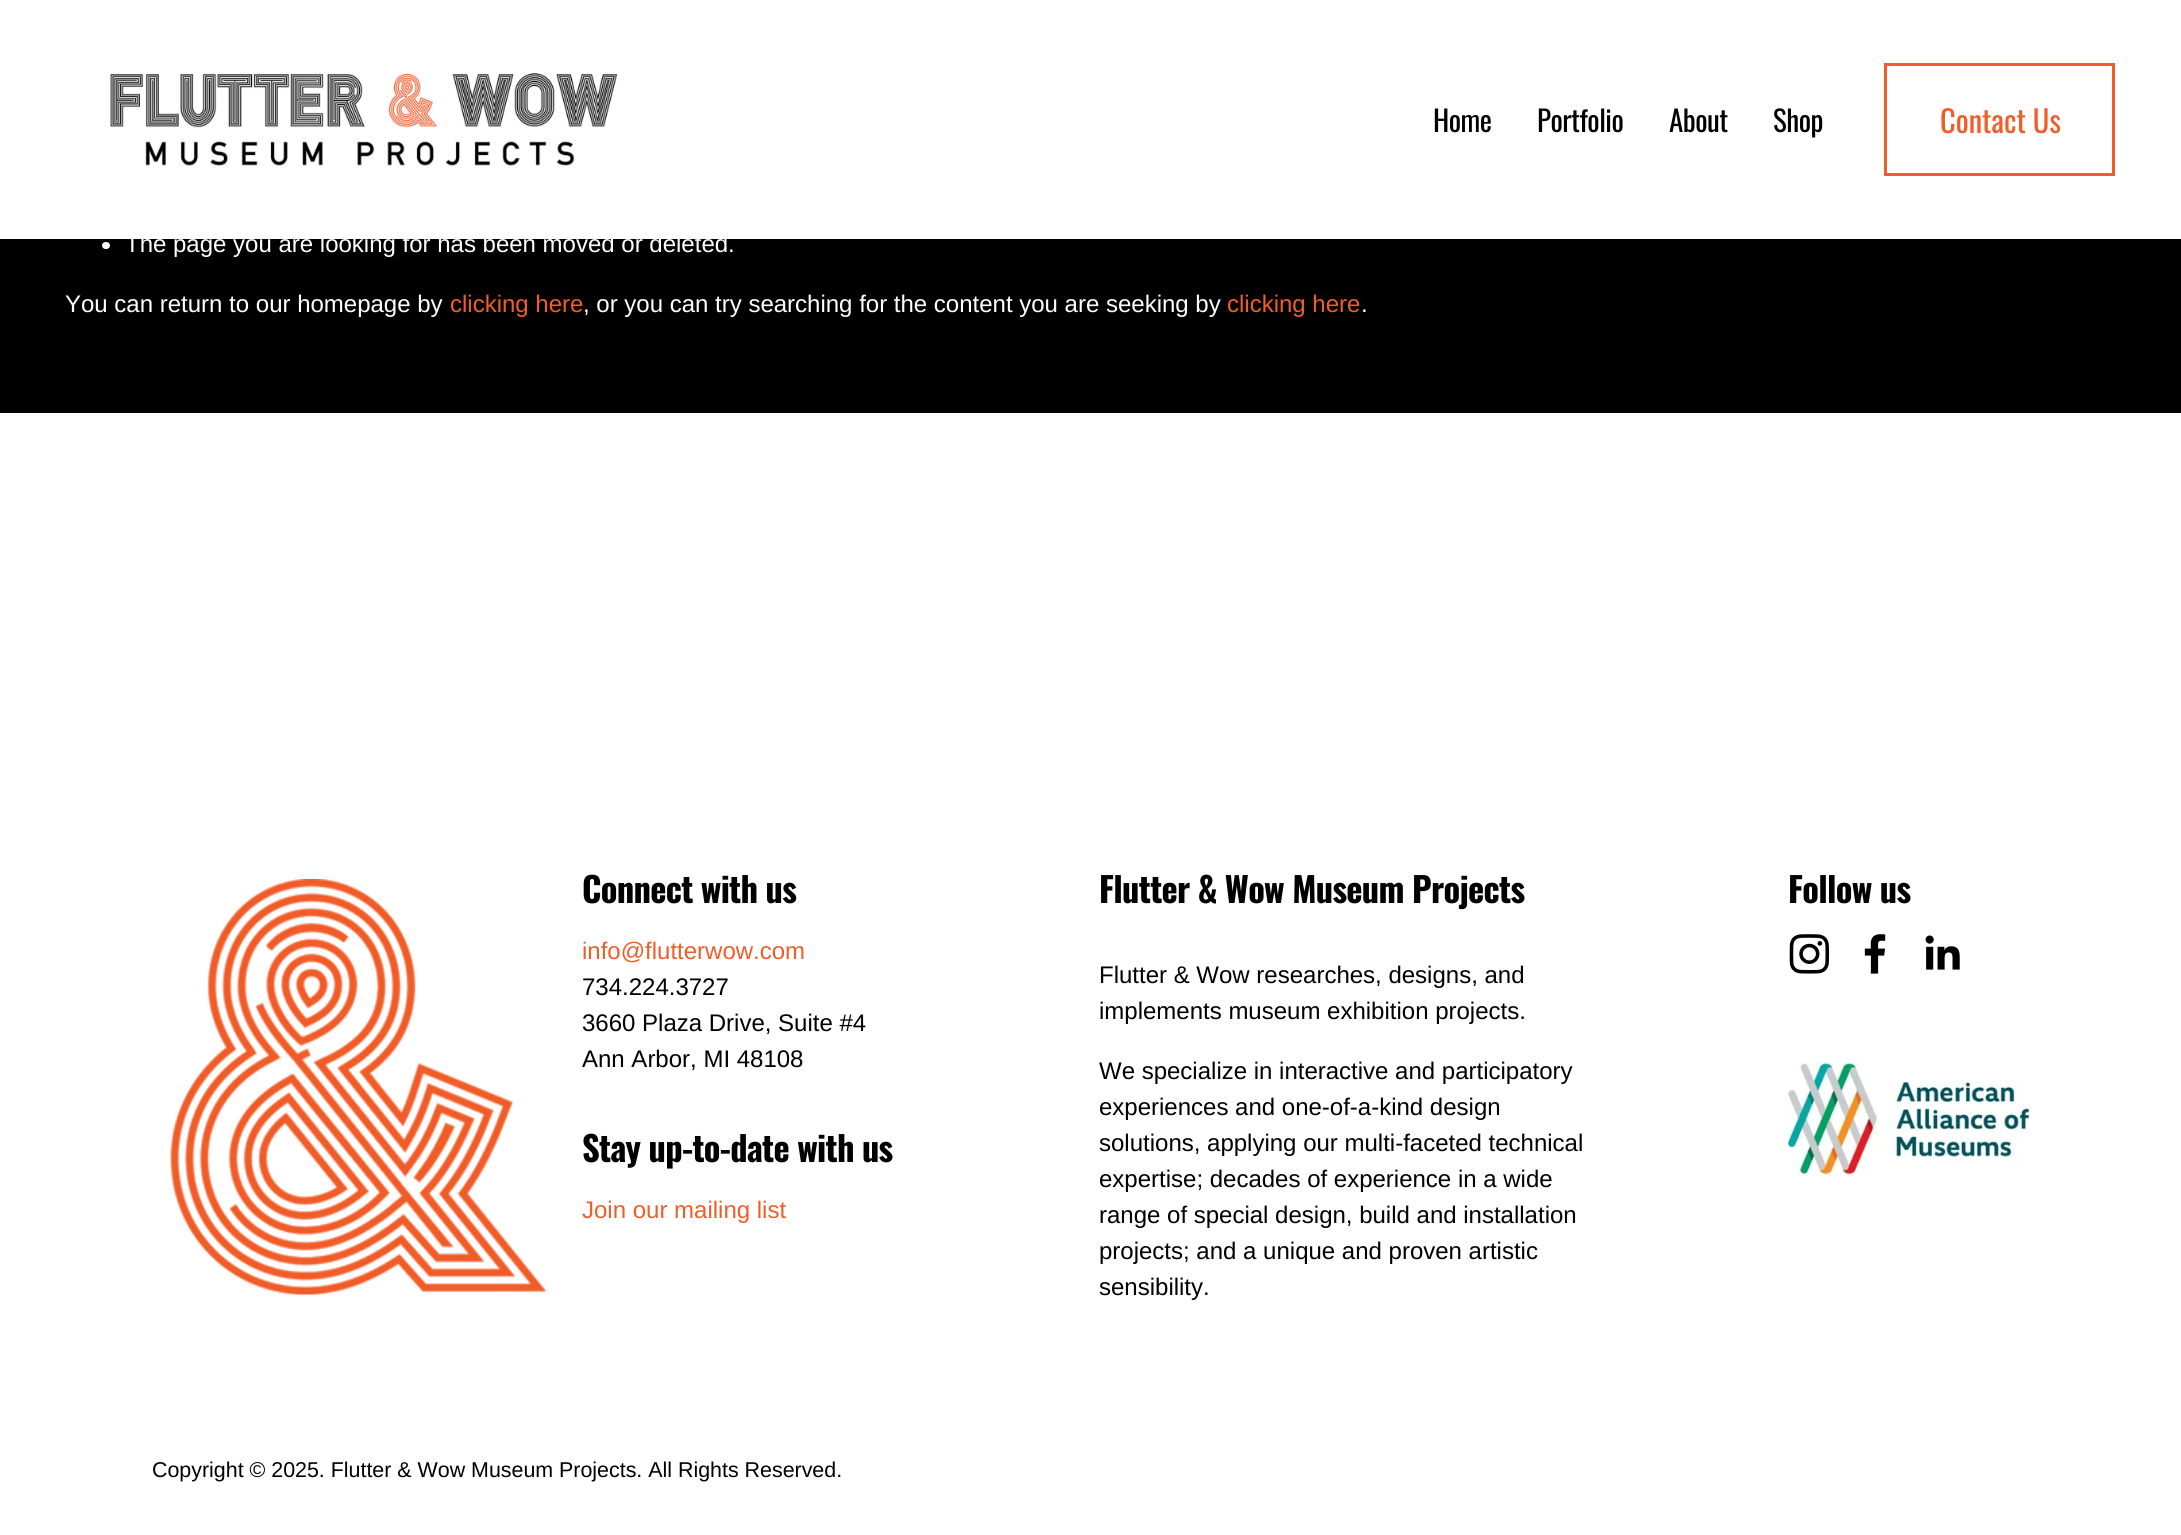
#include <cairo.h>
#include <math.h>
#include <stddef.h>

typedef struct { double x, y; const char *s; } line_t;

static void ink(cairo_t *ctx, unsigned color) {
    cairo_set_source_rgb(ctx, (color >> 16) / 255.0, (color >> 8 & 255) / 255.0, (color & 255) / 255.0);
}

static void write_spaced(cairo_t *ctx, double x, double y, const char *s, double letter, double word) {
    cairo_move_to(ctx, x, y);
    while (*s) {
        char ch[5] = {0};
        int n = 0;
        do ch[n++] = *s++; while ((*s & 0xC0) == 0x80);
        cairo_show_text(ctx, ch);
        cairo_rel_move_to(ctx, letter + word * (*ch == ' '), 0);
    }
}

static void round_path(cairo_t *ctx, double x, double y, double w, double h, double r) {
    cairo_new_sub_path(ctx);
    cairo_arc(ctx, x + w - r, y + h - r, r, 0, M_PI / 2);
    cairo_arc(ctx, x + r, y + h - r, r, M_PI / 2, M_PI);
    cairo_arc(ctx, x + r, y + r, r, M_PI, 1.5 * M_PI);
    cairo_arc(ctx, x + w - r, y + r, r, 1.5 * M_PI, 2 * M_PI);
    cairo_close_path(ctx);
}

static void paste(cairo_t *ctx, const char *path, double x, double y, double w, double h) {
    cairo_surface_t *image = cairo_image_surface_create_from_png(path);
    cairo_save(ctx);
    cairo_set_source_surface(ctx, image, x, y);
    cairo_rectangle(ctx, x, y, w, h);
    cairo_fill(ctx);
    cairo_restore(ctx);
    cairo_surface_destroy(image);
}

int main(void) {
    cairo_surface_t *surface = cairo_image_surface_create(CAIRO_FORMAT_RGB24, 2181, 1535);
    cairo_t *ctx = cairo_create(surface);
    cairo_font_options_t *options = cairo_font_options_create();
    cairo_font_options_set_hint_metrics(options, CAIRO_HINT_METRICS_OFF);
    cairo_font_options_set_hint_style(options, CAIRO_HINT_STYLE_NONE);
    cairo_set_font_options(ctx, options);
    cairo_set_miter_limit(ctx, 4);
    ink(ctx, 0x000000);
    cairo_paint(ctx);
    ink(ctx, 0xFFFFFF);
    cairo_rectangle(ctx, 0, 0, 2181, 239);
    cairo_fill(ctx);
    paste(ctx, "media/1.png", 110, 73, 508, 93);
    cairo_select_font_face(ctx, "Oswald", CAIRO_FONT_SLANT_NORMAL, CAIRO_FONT_WEIGHT_NORMAL);
    cairo_set_font_size(ctx, 29);
    ink(ctx, 0x000000);
    {
        static const line_t items[] = {
            {1433, 132, "Home"},
            {1537, 132, "Portfolio"},
            {1669, 132, "About"},
            {1773, 132, "Shop"},
        };
        for (size_t i = 0; i < sizeof items / sizeof *items; i++) {
            write_spaced(ctx, items[i].x, items[i].y, items[i].s, -0.5, 0);
        }
    }
    cairo_rectangle(ctx, 1885.5, 64.5, 228, 110);
    ink(ctx, 0xF15D29);
    cairo_set_line_width(ctx, 3);
    cairo_stroke(ctx);
    cairo_set_font_size(ctx, 30.5);
    cairo_move_to(ctx, 1940, 133);
    cairo_show_text(ctx, "Contact Us");
    ink(ctx, 0xFFFFFF);
    round_path(ctx, 102, 242, 8, 7, 3.5);
    cairo_fill(ctx);
    cairo_select_font_face(ctx, "Arimo", CAIRO_FONT_SLANT_NORMAL, CAIRO_FONT_WEIGHT_NORMAL);
    cairo_set_font_size(ctx, 24);
    cairo_move_to(ctx, 125, 252);
    cairo_show_text(ctx, "The page you are looking for has been moved or deleted.");
    cairo_move_to(ctx, 65, 312);
    cairo_show_text(ctx, "You can return to our homepage by");
    ink(ctx, 0xF15D29);
    cairo_move_to(ctx, 450, 312);
    cairo_show_text(ctx, "clicking here");
    ink(ctx, 0xFFFFFF);
    cairo_move_to(ctx, 583, 312);
    cairo_show_text(ctx, ", or you can try searching for the content you are seeking by");
    ink(ctx, 0xF15D29);
    cairo_move_to(ctx, 1227, 312);
    cairo_show_text(ctx, "clicking here");
    ink(ctx, 0xFFFFFF);
    cairo_move_to(ctx, 1361, 312);
    cairo_show_text(ctx, ".");
    cairo_rectangle(ctx, 0, 413, 2181, 1122);
    cairo_fill(ctx);
    paste(ctx, "media/2.png", 170, 879, 377, 416);
    cairo_select_font_face(ctx, "Oswald", CAIRO_FONT_SLANT_NORMAL, CAIRO_FONT_WEIGHT_BOLD);
    cairo_set_font_size(ctx, 34.5);
    ink(ctx, 0x000000);
    write_spaced(ctx, 582, 903, "Connect with us", -0.7, 0);
    write_spaced(ctx, 1099, 903, "Flutter & Wow Museum Projects", -0.7, 0);
    cairo_select_font_face(ctx, "Arimo", CAIRO_FONT_SLANT_NORMAL, CAIRO_FONT_WEIGHT_NORMAL);
    cairo_set_font_size(ctx, 24);
    {
        static const line_t items[] = {
            {1099, 983, "Flutter & Wow researches, designs, and"},
            {1099, 1019, "implements museum exhibition projects."},
            {1099, 1079, "We specialize in interactive and participatory"},
            {1099, 1115, "experiences and one-of-a-kind design"},
            {1099, 1151, "solutions, applying our multi-faceted technical"},
            {1099, 1187, "expertise; decades of experience in a wide"},
            {1099, 1223, "range of special design, build and installation"},
            {1099, 1259, "projects; and a unique and proven artistic"},
            {1099, 1295, "sensibility."},
        };
        for (size_t i = 0; i < sizeof items / sizeof *items; i++) {
            cairo_move_to(ctx, items[i].x, items[i].y);
            cairo_show_text(ctx, items[i].s);
        }
    }
    cairo_select_font_face(ctx, "Oswald", CAIRO_FONT_SLANT_NORMAL, CAIRO_FONT_WEIGHT_BOLD);
    cairo_set_font_size(ctx, 34.5);
    write_spaced(ctx, 1788, 903, "Follow us", -0.7, 0);
    cairo_select_font_face(ctx, "Arimo", CAIRO_FONT_SLANT_NORMAL, CAIRO_FONT_WEIGHT_NORMAL);
    cairo_set_font_size(ctx, 24);
    ink(ctx, 0xF15D29);
    cairo_move_to(ctx, 582, 959);
    cairo_show_text(ctx, "info@flutterwow.com");
    ink(ctx, 0x000000);
    {
        static const line_t items[] = {
            {582, 995, "734.224.3727"},
            {582, 1031, "3660 Plaza Drive, Suite #4"},
            {582, 1067, "Ann Arbor, MI 48108"},
        };
        for (size_t i = 0; i < sizeof items / sizeof *items; i++) {
            cairo_move_to(ctx, items[i].x, items[i].y);
            cairo_show_text(ctx, items[i].s);
        }
    }
    paste(ctx, "media/3.png", 1789, 934, 41, 40);
    paste(ctx, "media/4.png", 1864, 934, 22, 40);
    paste(ctx, "media/5.png", 1925, 935, 35, 35);
    cairo_select_font_face(ctx, "Oswald", CAIRO_FONT_SLANT_NORMAL, CAIRO_FONT_WEIGHT_BOLD);
    cairo_set_font_size(ctx, 34.5);
    write_spaced(ctx, 582, 1162, "Stay up-to-date with us", -0.7, 0);
    paste(ctx, "media/6.png", 1788, 1062, 242, 114);
    cairo_select_font_face(ctx, "Arimo", CAIRO_FONT_SLANT_NORMAL, CAIRO_FONT_WEIGHT_NORMAL);
    cairo_set_font_size(ctx, 24);
    ink(ctx, 0xF15D29);
    cairo_move_to(ctx, 582, 1218);
    cairo_show_text(ctx, "Join our mailing list");
    cairo_set_font_size(ctx, 21.4);
    ink(ctx, 0x000000);
    cairo_move_to(ctx, 152, 1477);
    cairo_show_text(ctx, "Copyright © 2025. Flutter & Wow Museum Projects. All Rights Reserved.");
    cairo_surface_write_to_png(surface, "image.png");
    cairo_font_options_destroy(options);
    cairo_destroy(ctx);
    cairo_surface_destroy(surface);
    return 0;
}
